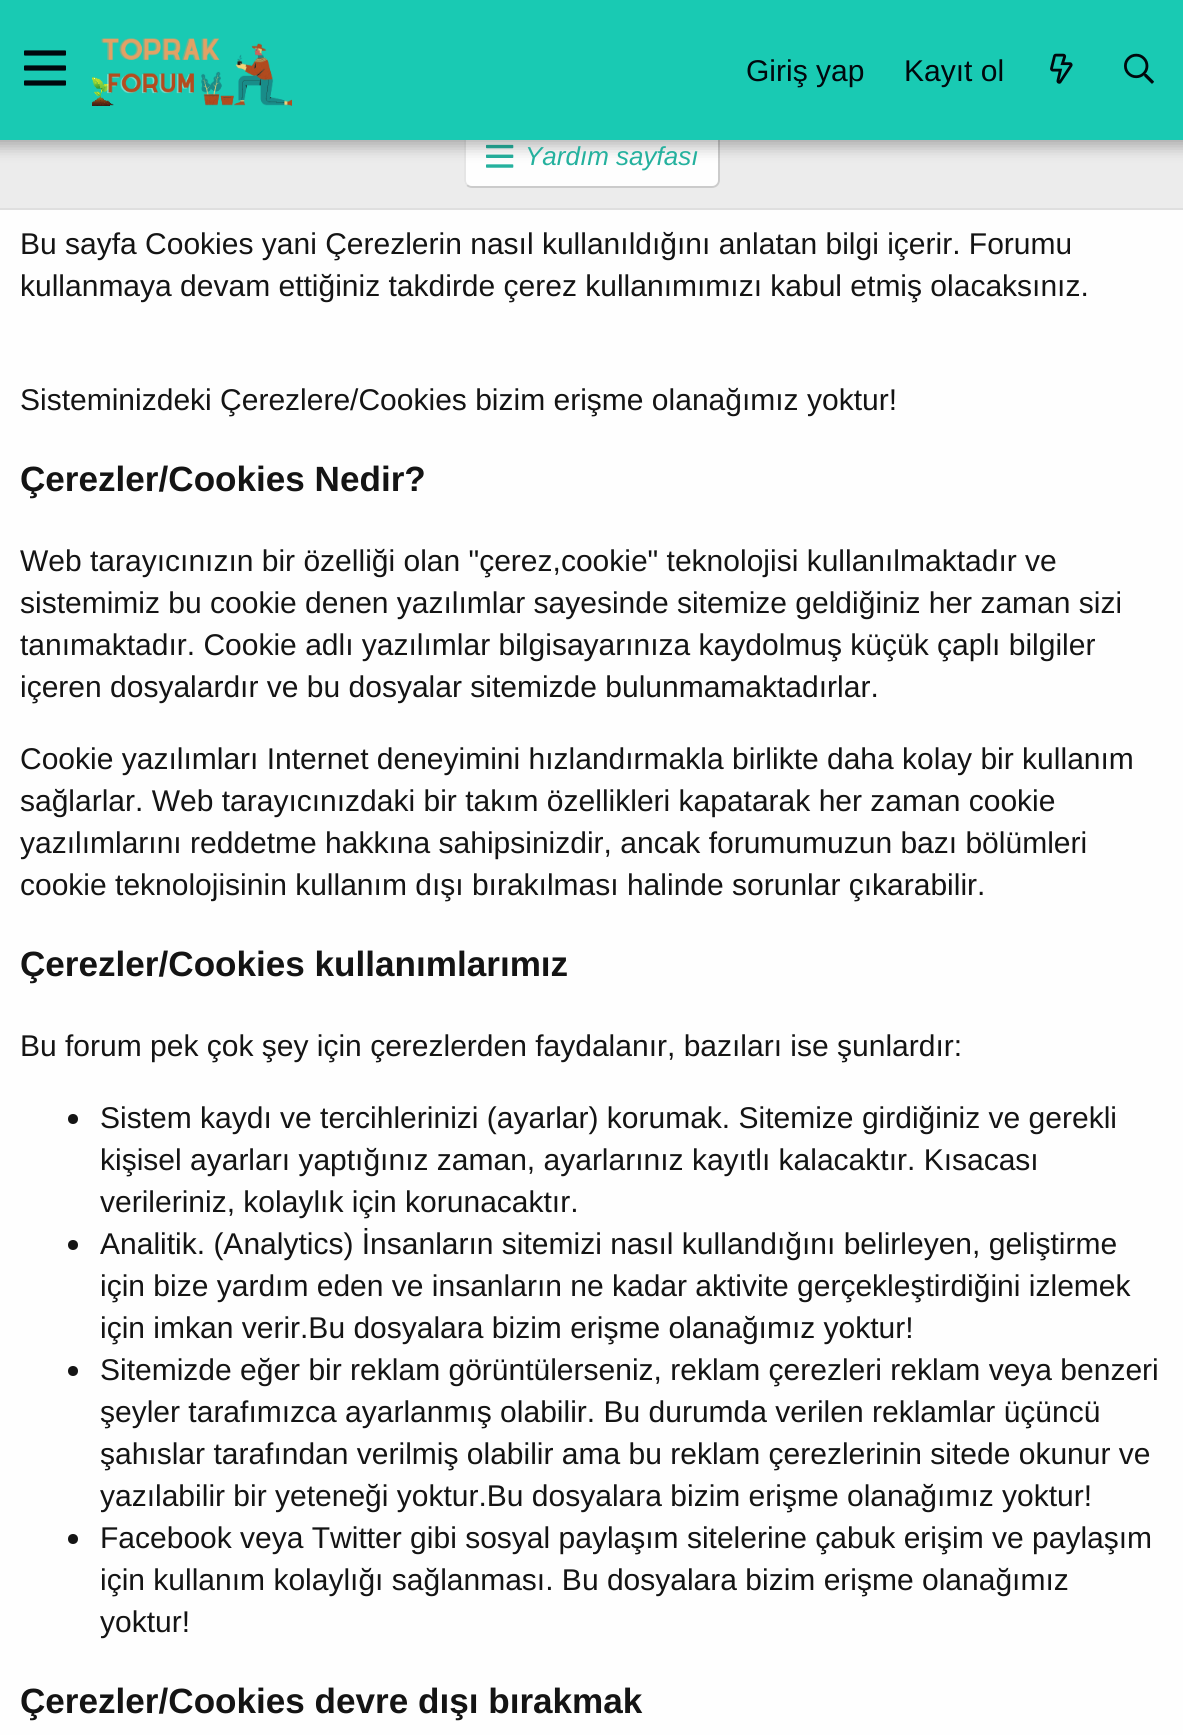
#include <cairo.h>
#include <math.h>
#include <stddef.h>

typedef struct { double x, y; const char *s; } line_t;

static void ink(cairo_t *ctx, unsigned color) {
    cairo_set_source_rgb(ctx, (color >> 16) / 255.0, (color >> 8 & 255) / 255.0, (color & 255) / 255.0);
}

static void round_path(cairo_t *ctx, double x, double y, double w, double h, double r) {
    cairo_new_sub_path(ctx);
    cairo_arc(ctx, x + w - r, y + h - r, r, 0, M_PI / 2);
    cairo_arc(ctx, x + r, y + h - r, r, M_PI / 2, M_PI);
    cairo_arc(ctx, x + r, y + r, r, M_PI, 1.5 * M_PI);
    cairo_arc(ctx, x + w - r, y + r, r, 1.5 * M_PI, 2 * M_PI);
    cairo_close_path(ctx);
}

static void blur_box(cairo_t *ctx, double x, double y, double w, double h, double r, double blur, double alpha) {
    cairo_push_group_with_content(ctx, CAIRO_CONTENT_ALPHA);
    cairo_set_operator(ctx, CAIRO_OPERATOR_SOURCE);
    for (int i = 15; i >= -15 && fmin(w, h) + blur * i / 3 > 0; i -= 2) {
        double e = blur * i / 6;
        cairo_set_source_rgba(ctx, 0, 0, 0, alpha * erfc((i - 1) / 8.5) / 2);
        round_path(ctx, x - e, y - e, w + 2 * e, h + 2 * e, fmax(0, fmin(r + e + blur * .6, fmin(w, h) / 2 + e)));
        cairo_fill(ctx);
    }
    cairo_pattern_t *soft = cairo_pop_group(ctx);
    cairo_mask(ctx, soft);
    cairo_pattern_destroy(soft);
}

static void paste(cairo_t *ctx, const char *path, double x, double y, double w, double h) {
    cairo_surface_t *image = cairo_image_surface_create_from_png(path);
    cairo_save(ctx);
    cairo_set_source_surface(ctx, image, x, y);
    cairo_rectangle(ctx, x, y, w, h);
    cairo_fill(ctx);
    cairo_restore(ctx);
    cairo_surface_destroy(image);
}

int main(void) {
    cairo_surface_t *surface = cairo_image_surface_create(CAIRO_FORMAT_RGB24, 1183, 1735);
    cairo_t *ctx = cairo_create(surface);
    cairo_font_options_t *options = cairo_font_options_create();
    cairo_font_options_set_hint_metrics(options, CAIRO_HINT_METRICS_OFF);
    cairo_font_options_set_hint_style(options, CAIRO_HINT_STYLE_NONE);
    cairo_set_font_options(ctx, options);
    cairo_set_miter_limit(ctx, 4);
    ink(ctx, 0xECECEC);
    cairo_paint(ctx);
    ink(ctx, 0xFEFEFE);
    round_path(ctx, 464, 128, 256, 60, 8);
    cairo_fill(ctx);
    cairo_new_path(ctx);
    cairo_move_to(ctx, 717, 131);
    cairo_curve_to(ctx, 718.5, 132.5, 719, 134, 719, 136);
    cairo_line_to(ctx, 719, 180);
    cairo_curve_to(ctx, 719, 182, 718.5, 183.5, 717, 185);
    cairo_curve_to(ctx, 715.5, 186.5, 714, 187, 712, 187);
    cairo_line_to(ctx, 472, 187);
    cairo_curve_to(ctx, 470, 187, 468.5, 186.5, 467, 185);
    ink(ctx, 0xCBCBCB);
    cairo_stroke(ctx);
    cairo_new_path(ctx);
    cairo_move_to(ctx, 467, 185);
    cairo_curve_to(ctx, 465.5, 183.5, 465, 182, 465, 180);
    cairo_line_to(ctx, 465, 136);
    cairo_curve_to(ctx, 465, 134, 465.5, 132.5, 467, 131);
    cairo_curve_to(ctx, 468.5, 129.5, 470, 129, 472, 129);
    cairo_line_to(ctx, 712, 129);
    cairo_curve_to(ctx, 714, 129, 715.5, 129.5, 717, 131);
    ink(ctx, 0xE5E5E5);
    cairo_stroke(ctx);
    paste(ctx, "media/5.png", 486, 144, 28, 24);
    ink(ctx, 0x000000);
    blur_box(ctx, -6, -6, 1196, 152, 0, 8, 0.3);
    ink(ctx, 0x19CAB3);
    cairo_rectangle(ctx, 0, 0, 1183, 140);
    cairo_fill(ctx);
    paste(ctx, "media/1.png", 24, 50, 42, 36);
    paste(ctx, "media/2.png", 92, 38, 200, 68);
    cairo_select_font_face(ctx, "Liberation Sans", CAIRO_FONT_SLANT_NORMAL, CAIRO_FONT_WEIGHT_NORMAL);
    cairo_set_font_size(ctx, 30);
    ink(ctx, 0x00080D);
    cairo_move_to(ctx, 746, 81);
    cairo_show_text(ctx, "Giriş yap");
    cairo_move_to(ctx, 904, 81);
    cairo_show_text(ctx, "Kayıt ol");
    paste(ctx, "media/3.png", 1050, 53, 23, 31);
    paste(ctx, "media/4.png", 1124, 53, 30, 31);
    cairo_select_font_face(ctx, "Liberation Sans", CAIRO_FONT_SLANT_ITALIC, CAIRO_FONT_WEIGHT_NORMAL);
    cairo_set_font_size(ctx, 26);
    ink(ctx, 0x25B19E);
    cairo_move_to(ctx, 525, 165);
    cairo_show_text(ctx, "Yardım sayfası");
    ink(ctx, 0xFEFEFE);
    cairo_rectangle(ctx, 0, 210, 1183, 1525);
    cairo_fill(ctx);
    ink(ctx, 0xDFDFDF);
    cairo_rectangle(ctx, 0, 208, 1183, 2);
    cairo_fill(ctx);
    cairo_select_font_face(ctx, "Liberation Sans", CAIRO_FONT_SLANT_NORMAL, CAIRO_FONT_WEIGHT_NORMAL);
    cairo_set_font_size(ctx, 30);
    ink(ctx, 0x141414);
    {
        static const line_t items[] = {
            {20, 254, "Bu sayfa Cookies yani Çerezlerin nasıl kullanıldığını anlatan bilgi içerir. Forumu"},
            {20, 296, "kullanmaya devam ettiğiniz takdirde çerez kullanımımızı kabul etmiş olacaksınız."},
            {20, 410, "Sisteminizdeki Çerezlere/Cookies bizim erişme olanağımız yoktur!"},
        };
        for (size_t i = 0; i < sizeof items / sizeof *items; i++) {
            cairo_move_to(ctx, items[i].x, items[i].y);
            cairo_show_text(ctx, items[i].s);
        }
    }
    cairo_select_font_face(ctx, "Liberation Sans", CAIRO_FONT_SLANT_NORMAL, CAIRO_FONT_WEIGHT_BOLD);
    cairo_set_font_size(ctx, 35.1);
    cairo_move_to(ctx, 20, 491);
    cairo_show_text(ctx, "Çerezler/Cookies Nedir?");
    cairo_select_font_face(ctx, "Liberation Sans", CAIRO_FONT_SLANT_NORMAL, CAIRO_FONT_WEIGHT_NORMAL);
    cairo_set_font_size(ctx, 30);
    {
        static const line_t items[] = {
            {20, 571, "Web tarayıcınızın bir özelliği olan \"çerez,cookie\" teknolojisi kullanılmaktadır ve"},
            {20, 613, "sistemimiz bu cookie denen yazılımlar sayesinde sitemize geldiğiniz her zaman sizi"},
            {20, 655, "tanımaktadır. Cookie adlı yazılımlar bilgisayarınıza kaydolmuş küçük çaplı bilgiler"},
            {20, 697, "içeren dosyalardır ve bu dosyalar sitemizde bulunmamaktadırlar."},
            {20, 769, "Cookie yazılımları Internet deneyimini hızlandırmakla birlikte daha kolay bir kullanım"},
            {20, 811, "sağlarlar. Web tarayıcınızdaki bir takım özellikleri kapatarak her zaman cookie"},
            {20, 853, "yazılımlarını reddetme hakkına sahipsinizdir, ancak forumumuzun bazı bölümleri"},
            {20, 895, "cookie teknolojisinin kullanım dışı bırakılması halinde sorunlar çıkarabilir."},
        };
        for (size_t i = 0; i < sizeof items / sizeof *items; i++) {
            cairo_move_to(ctx, items[i].x, items[i].y);
            cairo_show_text(ctx, items[i].s);
        }
    }
    cairo_select_font_face(ctx, "Liberation Sans", CAIRO_FONT_SLANT_NORMAL, CAIRO_FONT_WEIGHT_BOLD);
    cairo_set_font_size(ctx, 35.1);
    cairo_move_to(ctx, 20, 976);
    cairo_show_text(ctx, "Çerezler/Cookies kullanımlarımız");
    cairo_select_font_face(ctx, "Liberation Sans", CAIRO_FONT_SLANT_NORMAL, CAIRO_FONT_WEIGHT_NORMAL);
    cairo_set_font_size(ctx, 30);
    cairo_move_to(ctx, 20, 1056);
    cairo_show_text(ctx, "Bu forum pek çok şey için çerezlerden faydalanır, bazıları ise şunlardır:");
    cairo_new_path(ctx);
    cairo_arc(ctx, 73, 1119, 5, 0, 2 * M_PI);
    cairo_fill(ctx);
    {
        static const line_t items[] = {
            {100, 1128, "Sistem kaydı ve tercihlerinizi (ayarlar) korumak. Sitemize girdiğiniz ve gerekli"},
            {100, 1170, "kişisel ayarları yaptığınız zaman, ayarlarınız kayıtlı kalacaktır. Kısacası"},
            {100, 1212, "verileriniz, kolaylık için korunacaktır."},
        };
        for (size_t i = 0; i < sizeof items / sizeof *items; i++) {
            cairo_move_to(ctx, items[i].x, items[i].y);
            cairo_show_text(ctx, items[i].s);
        }
    }
    cairo_new_path(ctx);
    cairo_arc(ctx, 73, 1245, 5, 0, 2 * M_PI);
    cairo_fill(ctx);
    {
        static const line_t items[] = {
            {100, 1254, "Analitik. (Analytics) İnsanların sitemizi nasıl kullandığını belirleyen, geliştirme"},
            {100, 1296, "için bize yardım eden ve insanların ne kadar aktivite gerçekleştirdiğini izlemek"},
            {100, 1338, "için imkan verir.Bu dosyalara bizim erişme olanağımız yoktur!"},
        };
        for (size_t i = 0; i < sizeof items / sizeof *items; i++) {
            cairo_move_to(ctx, items[i].x, items[i].y);
            cairo_show_text(ctx, items[i].s);
        }
    }
    cairo_new_path(ctx);
    cairo_arc(ctx, 73, 1371, 5, 0, 2 * M_PI);
    cairo_fill(ctx);
    {
        static const line_t items[] = {
            {100, 1380, "Sitemizde eğer bir reklam görüntülerseniz, reklam çerezleri reklam veya benzeri"},
            {100, 1422, "şeyler tarafımızca ayarlanmış olabilir. Bu durumda verilen reklamlar üçüncü"},
            {100, 1464, "şahıslar tarafından verilmiş olabilir ama bu reklam çerezlerinin sitede okunur ve"},
            {100, 1506, "yazılabilir bir yeteneği yoktur.Bu dosyalara bizim erişme olanağımız yoktur!"},
        };
        for (size_t i = 0; i < sizeof items / sizeof *items; i++) {
            cairo_move_to(ctx, items[i].x, items[i].y);
            cairo_show_text(ctx, items[i].s);
        }
    }
    cairo_new_path(ctx);
    cairo_arc(ctx, 73, 1539, 5, 0, 2 * M_PI);
    cairo_fill(ctx);
    {
        static const line_t items[] = {
            {100, 1548, "Facebook veya Twitter gibi sosyal paylaşım sitelerine çabuk erişim ve paylaşım"},
            {100, 1590, "için kullanım kolaylığı sağlanması. Bu dosyalara bizim erişme olanağımız"},
            {100, 1632, "yoktur!"},
        };
        for (size_t i = 0; i < sizeof items / sizeof *items; i++) {
            cairo_move_to(ctx, items[i].x, items[i].y);
            cairo_show_text(ctx, items[i].s);
        }
    }
    cairo_select_font_face(ctx, "Liberation Sans", CAIRO_FONT_SLANT_NORMAL, CAIRO_FONT_WEIGHT_BOLD);
    cairo_set_font_size(ctx, 35.1);
    cairo_move_to(ctx, 20, 1713);
    cairo_show_text(ctx, "Çerezler/Cookies devre dışı bırakmak");
    cairo_surface_write_to_png(surface, "image.png");
    cairo_font_options_destroy(options);
    cairo_destroy(ctx);
    cairo_surface_destroy(surface);
    return 0;
}
